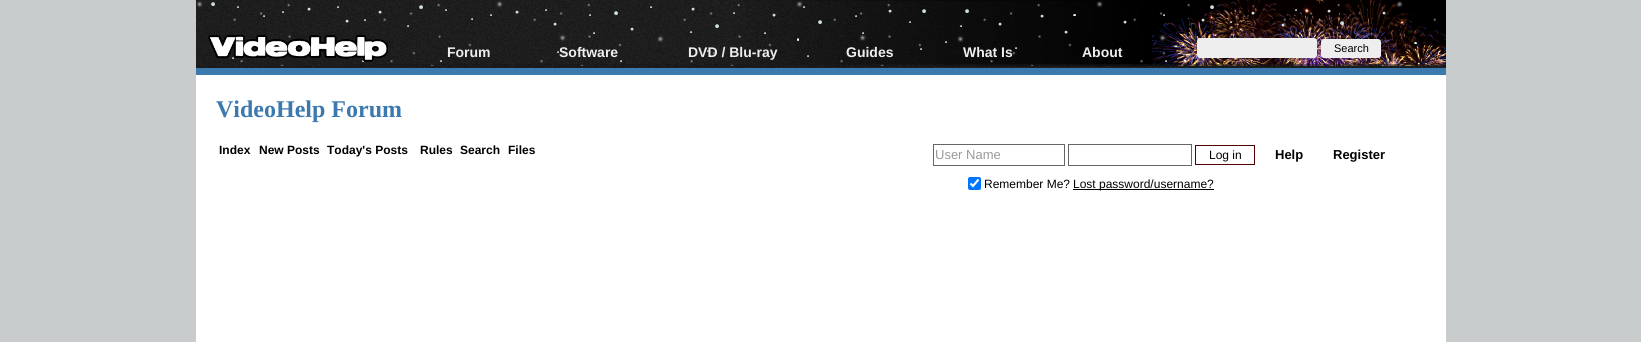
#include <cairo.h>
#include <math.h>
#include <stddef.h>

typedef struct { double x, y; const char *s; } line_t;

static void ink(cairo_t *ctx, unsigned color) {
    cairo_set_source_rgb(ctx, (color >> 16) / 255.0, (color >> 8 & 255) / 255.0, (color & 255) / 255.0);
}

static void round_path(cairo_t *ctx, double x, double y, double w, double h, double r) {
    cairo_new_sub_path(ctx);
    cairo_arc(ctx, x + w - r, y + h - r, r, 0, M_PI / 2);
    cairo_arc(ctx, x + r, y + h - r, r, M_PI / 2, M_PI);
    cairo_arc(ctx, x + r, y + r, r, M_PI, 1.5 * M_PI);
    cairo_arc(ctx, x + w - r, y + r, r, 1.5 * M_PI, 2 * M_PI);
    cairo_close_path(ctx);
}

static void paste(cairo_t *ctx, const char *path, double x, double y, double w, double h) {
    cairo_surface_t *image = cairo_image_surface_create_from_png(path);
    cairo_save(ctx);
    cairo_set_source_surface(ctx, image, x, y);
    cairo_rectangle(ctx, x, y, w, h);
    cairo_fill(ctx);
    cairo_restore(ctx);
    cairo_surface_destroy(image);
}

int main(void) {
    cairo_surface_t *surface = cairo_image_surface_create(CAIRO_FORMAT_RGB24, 1641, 342);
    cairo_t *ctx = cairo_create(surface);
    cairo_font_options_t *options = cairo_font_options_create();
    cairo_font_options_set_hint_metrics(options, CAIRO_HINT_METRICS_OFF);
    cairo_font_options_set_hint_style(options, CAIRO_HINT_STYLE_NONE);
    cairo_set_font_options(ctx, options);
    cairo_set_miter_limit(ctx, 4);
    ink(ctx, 0xC8CCCC);
    cairo_paint(ctx);
    ink(ctx, 0x222222);
    cairo_rectangle(ctx, 196, 0, 1250, 68);
    cairo_fill(ctx);
    paste(ctx, "media/2.png", 196, 0, 1250, 68);
    paste(ctx, "media/1.png", 196, 1, 1247, 65);
    ink(ctx, 0x3C79AE);
    cairo_rectangle(ctx, 196, 68, 1250, 7);
    cairo_fill(ctx);
    paste(ctx, "media/3.png", 208, 34, 180, 28);
    cairo_select_font_face(ctx, "Liberation Sans", CAIRO_FONT_SLANT_NORMAL, CAIRO_FONT_WEIGHT_BOLD);
    cairo_set_font_size(ctx, 14);
    ink(ctx, 0xEEEEEE);
    {
        static const line_t items[] = {
            {447, 57, "Forum"},
            {559, 57, "Software"},
            {688, 57, "DVD / Blu-ray"},
            {846, 57, "Guides"},
            {963, 57, "What Is"},
            {1082, 57, "About"},
        };
        for (size_t i = 0; i < sizeof items / sizeof *items; i++) {
            cairo_move_to(ctx, items[i].x, items[i].y);
            cairo_show_text(ctx, items[i].s);
        }
    }
    round_path(ctx, 1197, 38, 120, 20, 3);
    cairo_fill(ctx);
    round_path(ctx, 1321, 39, 60, 19, 3);
    cairo_fill(ctx);
    cairo_select_font_face(ctx, "Liberation Sans", CAIRO_FONT_SLANT_NORMAL, CAIRO_FONT_WEIGHT_NORMAL);
    cairo_set_font_size(ctx, 11);
    ink(ctx, 0x000000);
    cairo_move_to(ctx, 1334, 52);
    cairo_show_text(ctx, "Search");
    ink(ctx, 0xFFFFFF);
    cairo_rectangle(ctx, 196, 75, 1250, 267);
    cairo_fill(ctx);
    cairo_select_font_face(ctx, "Liberation Serif", CAIRO_FONT_SLANT_NORMAL, CAIRO_FONT_WEIGHT_BOLD);
    cairo_set_font_size(ctx, 24);
    ink(ctx, 0x3C79AE);
    cairo_move_to(ctx, 216, 117);
    cairo_show_text(ctx, "VideoHelp Forum");
    cairo_select_font_face(ctx, "Liberation Sans", CAIRO_FONT_SLANT_NORMAL, CAIRO_FONT_WEIGHT_BOLD);
    cairo_set_font_size(ctx, 12);
    ink(ctx, 0x000000);
    {
        static const line_t items[] = {
            {219, 154, "Index"},
            {259, 154, "New Posts"},
            {327, 154, "Today's Posts"},
            {420, 154, "Rules"},
            {460, 154, "Search"},
            {508, 154, "Files"},
        };
        for (size_t i = 0; i < sizeof items / sizeof *items; i++) {
            cairo_move_to(ctx, items[i].x, items[i].y);
            cairo_show_text(ctx, items[i].s);
        }
    }
    cairo_rectangle(ctx, 933.5, 144.5, 131, 21);
    ink(ctx, 0x666666);
    cairo_set_line_width(ctx, 1);
    cairo_stroke(ctx);
    cairo_select_font_face(ctx, "Liberation Sans", CAIRO_FONT_SLANT_NORMAL, CAIRO_FONT_WEIGHT_NORMAL);
    cairo_set_font_size(ctx, 13);
    ink(ctx, 0x999999);
    cairo_move_to(ctx, 935, 159);
    cairo_show_text(ctx, "User Name");
    cairo_rectangle(ctx, 1068.5, 144.5, 123, 21);
    ink(ctx, 0x666666);
    cairo_stroke(ctx);
    cairo_rectangle(ctx, 1195.5, 145.5, 59, 19);
    ink(ctx, 0x540000);
    cairo_stroke(ctx);
    cairo_set_font_size(ctx, 12);
    ink(ctx, 0x000000);
    cairo_move_to(ctx, 1209, 159);
    cairo_show_text(ctx, "Log in");
    ink(ctx, 0x0075FF);
    round_path(ctx, 968, 177, 13, 13, 2);
    cairo_fill(ctx);
    cairo_new_path(ctx);
    cairo_move_to(ctx, 970.5, 183.5);
    cairo_line_to(ctx, 973, 186);
    cairo_line_to(ctx, 978.5, 179.5);
    ink(ctx, 0xFFFFFF);
    cairo_set_line_width(ctx, 2.1);
    cairo_stroke(ctx);
    ink(ctx, 0x000000);
    cairo_move_to(ctx, 984, 188);
    cairo_show_text(ctx, "Remember Me?");
    cairo_rectangle(ctx, 1073, 189, 141, 1);
    cairo_fill(ctx);
    cairo_move_to(ctx, 1073, 188);
    cairo_show_text(ctx, "Lost password/username?");
    cairo_select_font_face(ctx, "Liberation Sans", CAIRO_FONT_SLANT_NORMAL, CAIRO_FONT_WEIGHT_BOLD);
    cairo_set_font_size(ctx, 13);
    cairo_move_to(ctx, 1275, 159);
    cairo_show_text(ctx, "Help");
    cairo_move_to(ctx, 1333, 159);
    cairo_show_text(ctx, "Register");
    cairo_surface_write_to_png(surface, "image.png");
    cairo_font_options_destroy(options);
    cairo_destroy(ctx);
    cairo_surface_destroy(surface);
    return 0;
}
